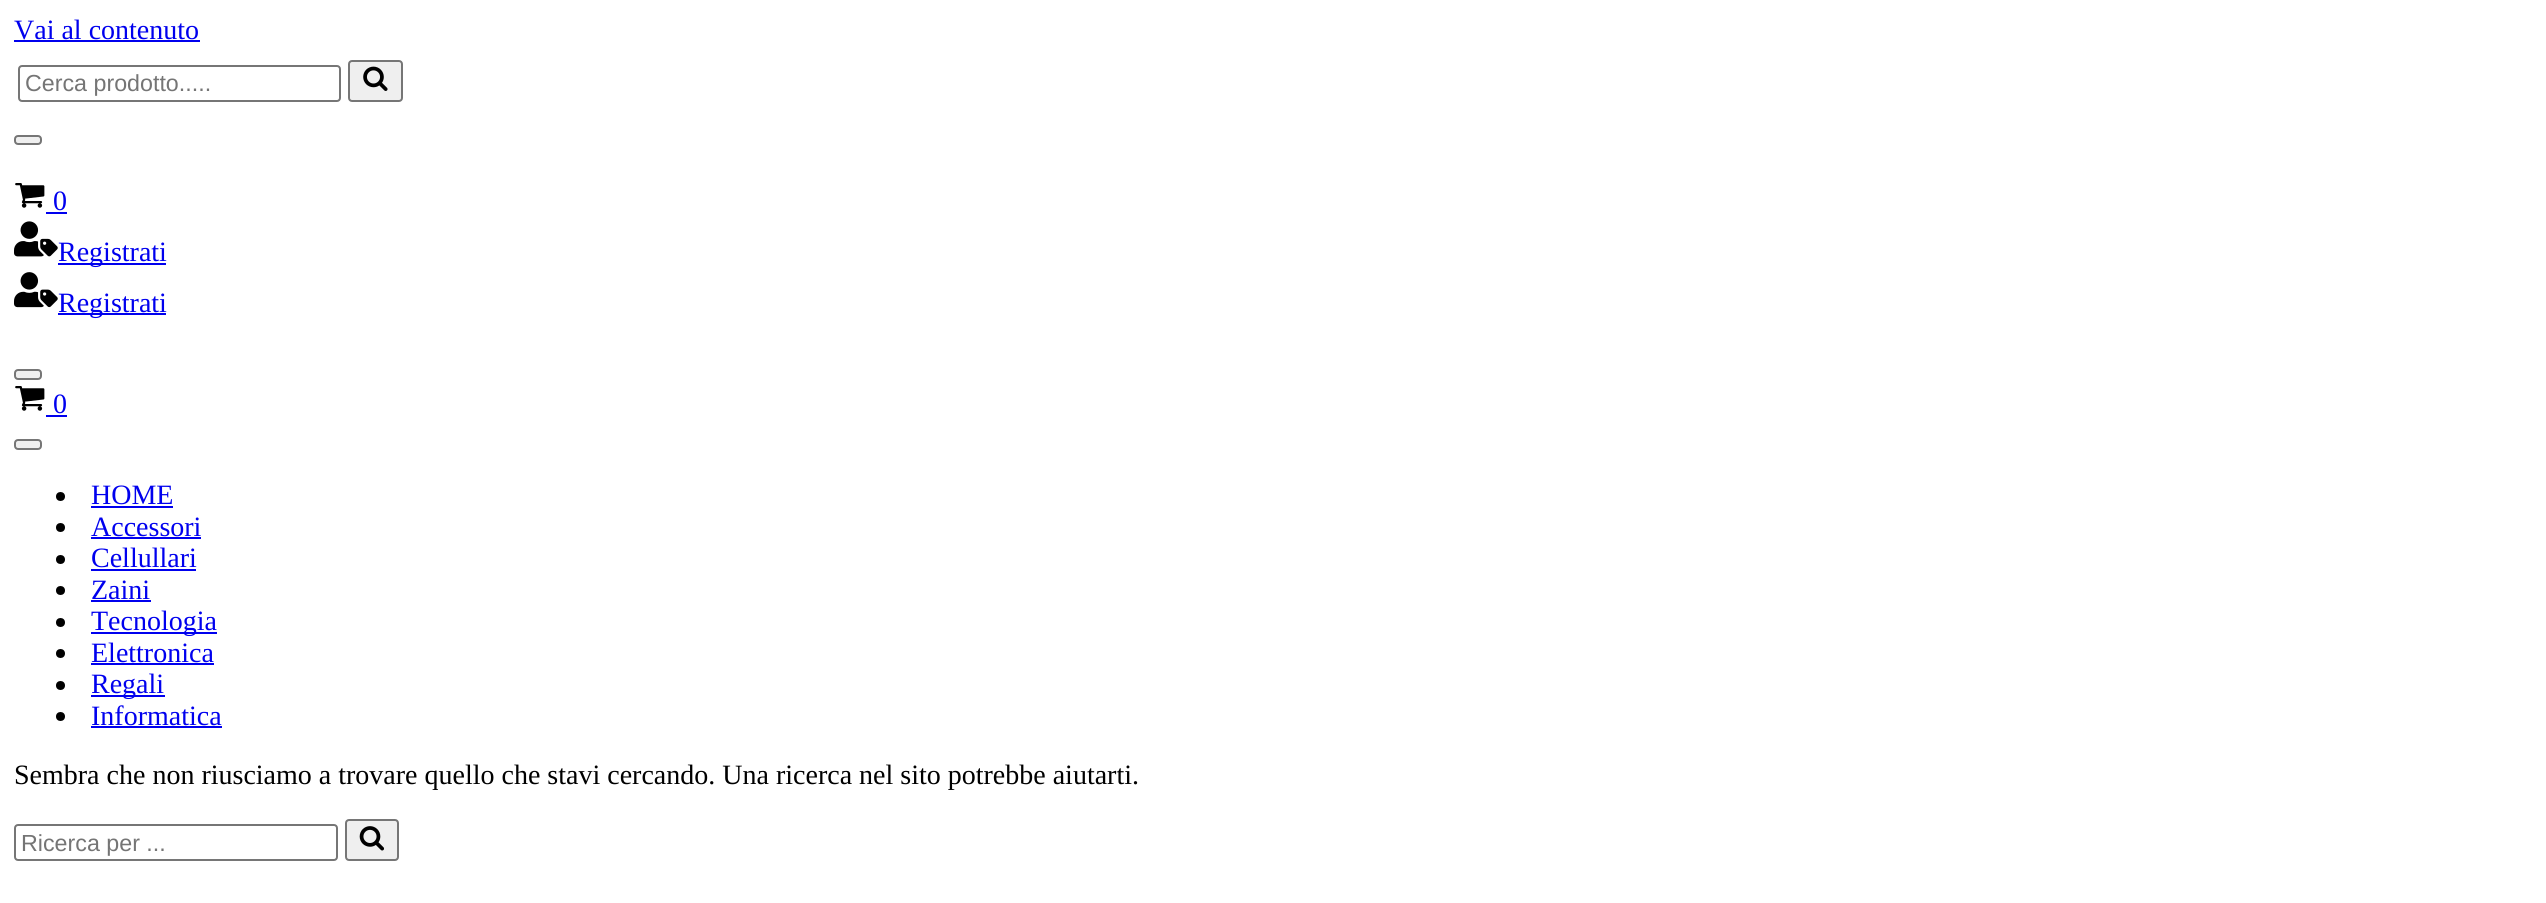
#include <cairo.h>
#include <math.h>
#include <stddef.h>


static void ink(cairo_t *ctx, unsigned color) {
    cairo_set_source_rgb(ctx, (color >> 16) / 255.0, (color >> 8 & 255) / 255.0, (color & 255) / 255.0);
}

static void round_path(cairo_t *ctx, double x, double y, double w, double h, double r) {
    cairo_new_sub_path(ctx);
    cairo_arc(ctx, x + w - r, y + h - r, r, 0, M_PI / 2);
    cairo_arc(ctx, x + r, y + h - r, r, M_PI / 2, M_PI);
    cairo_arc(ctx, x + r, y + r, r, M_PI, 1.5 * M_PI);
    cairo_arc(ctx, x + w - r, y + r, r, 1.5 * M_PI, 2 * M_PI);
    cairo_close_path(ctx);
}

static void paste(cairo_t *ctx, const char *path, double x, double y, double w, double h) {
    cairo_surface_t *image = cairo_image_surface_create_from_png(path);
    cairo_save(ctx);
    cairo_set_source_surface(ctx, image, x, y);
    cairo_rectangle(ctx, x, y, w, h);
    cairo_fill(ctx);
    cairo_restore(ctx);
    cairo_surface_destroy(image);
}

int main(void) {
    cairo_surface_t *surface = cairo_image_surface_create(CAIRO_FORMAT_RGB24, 2546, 903);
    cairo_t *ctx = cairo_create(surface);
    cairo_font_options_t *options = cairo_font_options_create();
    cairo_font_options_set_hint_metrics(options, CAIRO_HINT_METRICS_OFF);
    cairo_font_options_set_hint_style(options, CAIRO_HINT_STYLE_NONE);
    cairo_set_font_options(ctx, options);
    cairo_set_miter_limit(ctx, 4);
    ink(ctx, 0xFFFFFF);
    cairo_paint(ctx);
    cairo_select_font_face(ctx, "Liberation Serif", CAIRO_FONT_SLANT_NORMAL, CAIRO_FONT_WEIGHT_NORMAL);
    cairo_set_font_size(ctx, 28);
    ink(ctx, 0x0000EE);
    cairo_move_to(ctx, 14, 39);
    cairo_show_text(ctx, "Vai al contenuto");
    cairo_rectangle(ctx, 14, 40, 186, 2);
    cairo_fill(ctx);
    round_path(ctx, 19, 66, 321, 35, 3);
    ink(ctx, 0x767676);
    cairo_stroke(ctx);
    cairo_select_font_face(ctx, "Liberation Sans", CAIRO_FONT_SLANT_NORMAL, CAIRO_FONT_WEIGHT_NORMAL);
    cairo_set_font_size(ctx, 23.25);
    ink(ctx, 0x757575);
    cairo_move_to(ctx, 25, 91);
    cairo_show_text(ctx, "Cerca prodotto.....");
    ink(ctx, 0xEFEFEF);
    round_path(ctx, 349, 61, 53, 40, 3);
    cairo_fill_preserve(ctx);
    ink(ctx, 0x767676);
    cairo_stroke(ctx);
    paste(ctx, "media/1.png", 363, 66, 25, 25);
    ink(ctx, 0xEFEFEF);
    round_path(ctx, 15, 136, 26, 8, 3);
    cairo_fill_preserve(ctx);
    ink(ctx, 0x767676);
    cairo_stroke(ctx);
    paste(ctx, "media/2.png", 15, 183, 30, 25);
    cairo_select_font_face(ctx, "Liberation Serif", CAIRO_FONT_SLANT_NORMAL, CAIRO_FONT_WEIGHT_NORMAL);
    cairo_set_font_size(ctx, 28);
    ink(ctx, 0x0000EE);
    cairo_move_to(ctx, 53, 210);
    cairo_show_text(ctx, "0");
    cairo_rectangle(ctx, 46, 212, 21, 2);
    cairo_fill(ctx);
    paste(ctx, "media/3.png", 14, 221, 44, 36);
    cairo_rectangle(ctx, 58, 263, 108, 2);
    cairo_fill(ctx);
    cairo_move_to(ctx, 58, 261);
    cairo_show_text(ctx, "Registrati");
    paste(ctx, "media/4.png", 14, 272, 44, 36);
    cairo_rectangle(ctx, 58, 313, 108, 2);
    cairo_fill(ctx);
    cairo_move_to(ctx, 58, 312);
    cairo_show_text(ctx, "Registrati");
    ink(ctx, 0xEFEFEF);
    round_path(ctx, 15, 370, 26, 9, 3);
    cairo_fill_preserve(ctx);
    ink(ctx, 0x767676);
    cairo_stroke(ctx);
    paste(ctx, "media/2.png", 15, 386, 30, 25);
    ink(ctx, 0x0000EE);
    cairo_move_to(ctx, 53, 413);
    cairo_show_text(ctx, "0");
    cairo_rectangle(ctx, 46, 415, 21, 2);
    cairo_fill(ctx);
    ink(ctx, 0xEFEFEF);
    round_path(ctx, 15, 440, 26, 9, 3);
    cairo_fill_preserve(ctx);
    ink(ctx, 0x767676);
    cairo_stroke(ctx);
    ink(ctx, 0x000000);
    cairo_arc(ctx, 60.5, 496.5, 4.5, 0, 2 * M_PI);
    cairo_fill(ctx);
    ink(ctx, 0x0000EE);
    cairo_move_to(ctx, 91, 504);
    cairo_show_text(ctx, "HOME");
    cairo_rectangle(ctx, 91, 506, 82, 2);
    cairo_fill(ctx);
    ink(ctx, 0x000000);
    cairo_arc(ctx, 60.5, 527.5, 4.5, 0, 2 * M_PI);
    cairo_fill(ctx);
    ink(ctx, 0x0000EE);
    cairo_move_to(ctx, 91, 536);
    cairo_show_text(ctx, "Accessori");
    cairo_rectangle(ctx, 91, 537, 110, 2);
    cairo_fill(ctx);
    ink(ctx, 0x000000);
    cairo_arc(ctx, 60.5, 559.5, 4.5, 0, 2 * M_PI);
    cairo_fill(ctx);
    ink(ctx, 0x0000EE);
    cairo_move_to(ctx, 91, 567);
    cairo_show_text(ctx, "Cellullari");
    cairo_rectangle(ctx, 91, 569, 105, 2);
    cairo_fill(ctx);
    ink(ctx, 0x000000);
    cairo_arc(ctx, 60.5, 590.5, 4.5, 0, 2 * M_PI);
    cairo_fill(ctx);
    ink(ctx, 0x0000EE);
    cairo_move_to(ctx, 91, 599);
    cairo_show_text(ctx, "Zaini");
    cairo_rectangle(ctx, 91, 600, 60, 2);
    cairo_fill(ctx);
    ink(ctx, 0x000000);
    cairo_arc(ctx, 60.5, 622.5, 4.5, 0, 2 * M_PI);
    cairo_fill(ctx);
    ink(ctx, 0x0000EE);
    cairo_rectangle(ctx, 91, 632, 126, 2);
    cairo_fill(ctx);
    cairo_move_to(ctx, 91, 630);
    cairo_show_text(ctx, "Tecnologia");
    ink(ctx, 0x000000);
    cairo_new_path(ctx);
    cairo_arc(ctx, 60.5, 653.5, 4.5, 0, 2 * M_PI);
    cairo_fill(ctx);
    ink(ctx, 0x0000EE);
    cairo_move_to(ctx, 91, 662);
    cairo_show_text(ctx, "Elettronica");
    cairo_rectangle(ctx, 91, 663, 123, 2);
    cairo_fill(ctx);
    ink(ctx, 0x000000);
    cairo_arc(ctx, 60.5, 685.5, 4.5, 0, 2 * M_PI);
    cairo_fill(ctx);
    ink(ctx, 0x0000EE);
    cairo_rectangle(ctx, 91, 695, 74, 2);
    cairo_fill(ctx);
    cairo_move_to(ctx, 91, 693);
    cairo_show_text(ctx, "Regali");
    ink(ctx, 0x000000);
    cairo_new_path(ctx);
    cairo_arc(ctx, 60.5, 716.5, 4.5, 0, 2 * M_PI);
    cairo_fill(ctx);
    ink(ctx, 0x0000EE);
    cairo_move_to(ctx, 91, 725);
    cairo_show_text(ctx, "Informatica");
    cairo_rectangle(ctx, 91, 726, 131, 2);
    cairo_fill(ctx);
    ink(ctx, 0x000000);
    cairo_move_to(ctx, 14, 784);
    cairo_show_text(ctx, "Sembra che non riusciamo a trovare quello che stavi cercando. Una ricerca nel sito potrebbe aiutarti.");
    round_path(ctx, 15, 825, 322, 35, 3);
    ink(ctx, 0x767676);
    cairo_stroke(ctx);
    cairo_select_font_face(ctx, "Liberation Sans", CAIRO_FONT_SLANT_NORMAL, CAIRO_FONT_WEIGHT_NORMAL);
    cairo_set_font_size(ctx, 23.25);
    ink(ctx, 0x757575);
    cairo_move_to(ctx, 21, 851);
    cairo_show_text(ctx, "Ricerca per ...");
    ink(ctx, 0xEFEFEF);
    round_path(ctx, 346, 820, 52, 40, 3);
    cairo_fill_preserve(ctx);
    ink(ctx, 0x767676);
    cairo_stroke(ctx);
    paste(ctx, "media/5.png", 359, 826, 25, 25);
    cairo_surface_write_to_png(surface, "image.png");
    cairo_font_options_destroy(options);
    cairo_destroy(ctx);
    cairo_surface_destroy(surface);
    return 0;
}
